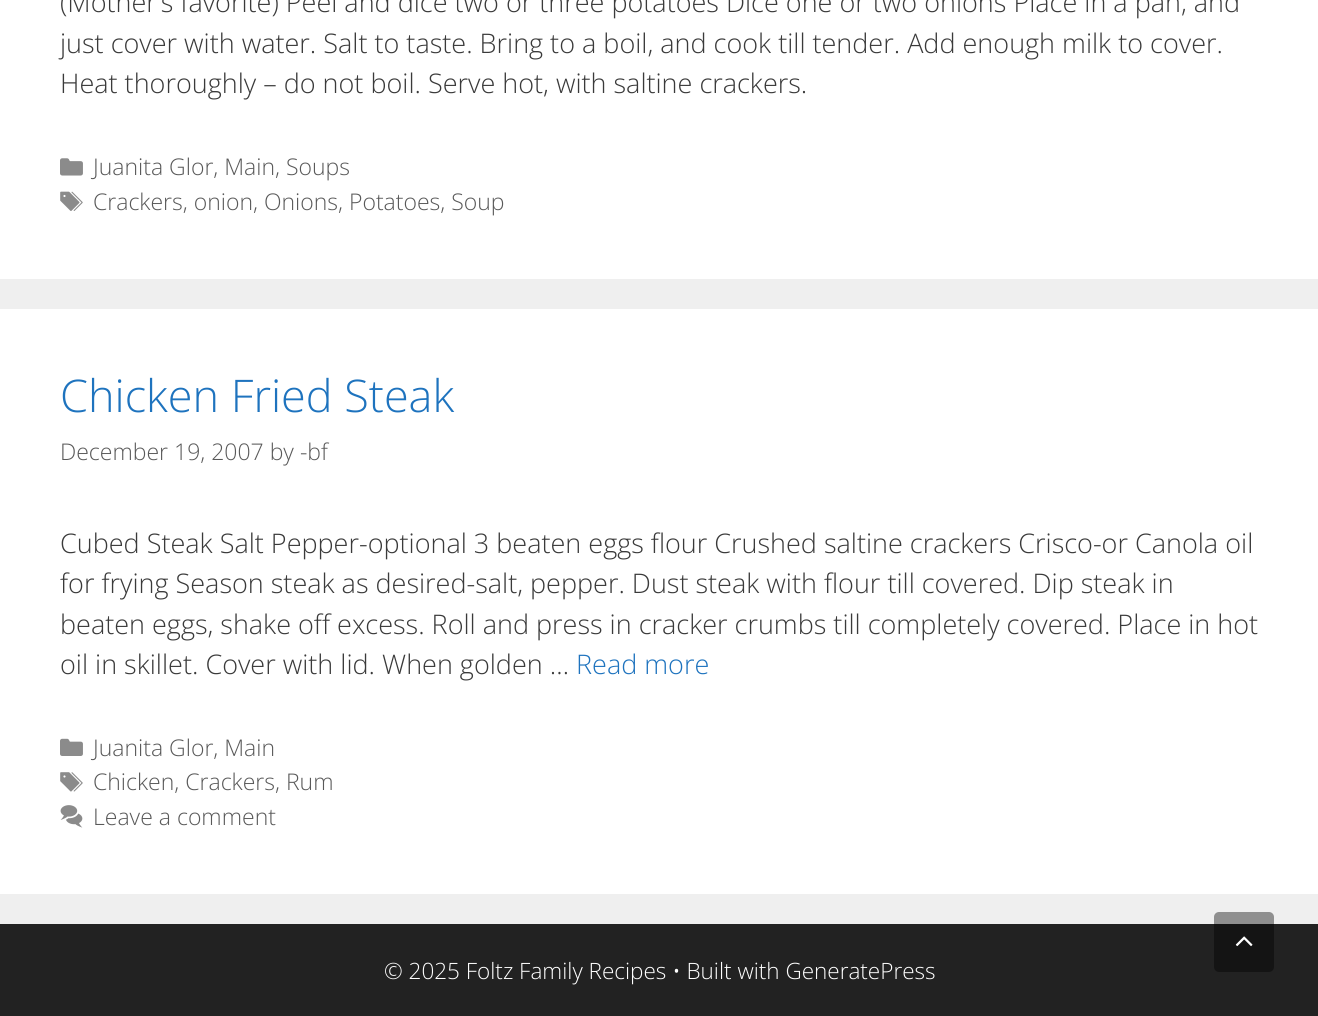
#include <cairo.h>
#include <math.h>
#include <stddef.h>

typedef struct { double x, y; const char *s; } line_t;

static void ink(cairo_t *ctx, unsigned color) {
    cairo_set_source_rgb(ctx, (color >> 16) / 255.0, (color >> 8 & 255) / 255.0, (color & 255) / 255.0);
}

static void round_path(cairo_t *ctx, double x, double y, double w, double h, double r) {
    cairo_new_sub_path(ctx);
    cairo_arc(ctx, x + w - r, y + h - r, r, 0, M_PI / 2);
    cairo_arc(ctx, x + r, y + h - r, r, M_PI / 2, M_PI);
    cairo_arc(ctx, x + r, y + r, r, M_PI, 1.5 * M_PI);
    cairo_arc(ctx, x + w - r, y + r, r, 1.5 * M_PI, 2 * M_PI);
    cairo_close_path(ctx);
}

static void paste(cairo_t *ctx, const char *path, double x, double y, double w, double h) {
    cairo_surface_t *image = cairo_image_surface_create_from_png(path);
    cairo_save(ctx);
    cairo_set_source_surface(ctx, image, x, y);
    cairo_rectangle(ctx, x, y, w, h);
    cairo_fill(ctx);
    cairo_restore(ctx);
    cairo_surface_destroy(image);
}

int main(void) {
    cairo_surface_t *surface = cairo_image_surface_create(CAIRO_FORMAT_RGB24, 1318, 1016);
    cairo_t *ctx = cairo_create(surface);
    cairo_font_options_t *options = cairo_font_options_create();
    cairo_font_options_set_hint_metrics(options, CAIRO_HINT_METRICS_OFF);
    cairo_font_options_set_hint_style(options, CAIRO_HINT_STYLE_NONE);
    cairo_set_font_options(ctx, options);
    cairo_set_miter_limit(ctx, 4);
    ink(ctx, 0xEFEFEF);
    cairo_paint(ctx);
    ink(ctx, 0xFFFFFF);
    cairo_rectangle(ctx, 0, 0, 1318, 279);
    cairo_fill(ctx);
    cairo_select_font_face(ctx, "Open Sans Light", CAIRO_FONT_SLANT_NORMAL, CAIRO_FONT_WEIGHT_NORMAL);
    cairo_set_font_size(ctx, 27);
    ink(ctx, 0x3A3A3A);
    {
        static const line_t items[] = {
            {60, 12, "(Mother’s favorite) Peel and dice two or three potatoes Dice one or two onions Place in a pan, and"},
            {60, 53, "just cover with water. Salt to taste. Bring to a boil, and cook till tender. Add enough milk to cover."},
            {60, 93, "Heat thoroughly – do not boil. Serve hot, with saltine crackers."},
        };
        for (size_t i = 0; i < sizeof items / sizeof *items; i++) {
            cairo_move_to(ctx, items[i].x, items[i].y);
            cairo_show_text(ctx, items[i].s);
        }
    }
    paste(ctx, "media/1.png", 60, 158, 23, 18);
    cairo_set_font_size(ctx, 23);
    ink(ctx, 0x595959);
    cairo_move_to(ctx, 93, 175);
    cairo_show_text(ctx, "Juanita Glor, Main, Soups");
    paste(ctx, "media/2.png", 60, 191, 23, 20);
    cairo_move_to(ctx, 93, 210);
    cairo_show_text(ctx, "Crackers, onion, Onions, Potatoes, Soup");
    ink(ctx, 0xFFFFFF);
    cairo_rectangle(ctx, 0, 309, 1318, 585);
    cairo_fill(ctx);
    cairo_set_font_size(ctx, 45);
    ink(ctx, 0x1E73BE);
    cairo_move_to(ctx, 60, 412);
    cairo_show_text(ctx, "Chicken Fried Steak");
    cairo_set_font_size(ctx, 23);
    ink(ctx, 0x595959);
    cairo_move_to(ctx, 60, 460);
    cairo_show_text(ctx, "December 19, 2007 by -bf");
    cairo_set_font_size(ctx, 27);
    ink(ctx, 0x3A3A3A);
    {
        static const line_t items[] = {
            {60, 553, "Cubed Steak Salt Pepper-optional 3 beaten eggs flour Crushed saltine crackers Crisco-or Canola oil"},
            {60, 593, "for frying Season steak as desired-salt, pepper. Dust steak with flour till covered. Dip steak in"},
            {60, 634, "beaten eggs, shake off excess. Roll and press in cracker crumbs till completely covered. Place in hot"},
            {60, 674, "oil in skillet. Cover with lid. When golden …"},
        };
        for (size_t i = 0; i < sizeof items / sizeof *items; i++) {
            cairo_move_to(ctx, items[i].x, items[i].y);
            cairo_show_text(ctx, items[i].s);
        }
    }
    ink(ctx, 0x1E73BE);
    cairo_move_to(ctx, 576, 674);
    cairo_show_text(ctx, "Read more");
    paste(ctx, "media/3.png", 60, 738, 23, 18);
    cairo_set_font_size(ctx, 23);
    ink(ctx, 0x595959);
    cairo_move_to(ctx, 93, 756);
    cairo_show_text(ctx, "Juanita Glor, Main");
    paste(ctx, "media/4.png", 60, 772, 23, 20);
    cairo_move_to(ctx, 93, 790);
    cairo_show_text(ctx, "Chicken, Crackers, Rum");
    paste(ctx, "media/5.png", 60, 805, 23, 23);
    cairo_move_to(ctx, 93, 825);
    cairo_show_text(ctx, "Leave a comment");
    ink(ctx, 0x222222);
    cairo_rectangle(ctx, 0, 924, 1318, 92);
    cairo_fill(ctx);
    cairo_set_font_size(ctx, 22.5);
    ink(ctx, 0xFFFFFF);
    cairo_move_to(ctx, 384, 979);
    cairo_show_text(ctx, "© 2025 Foltz Family Recipes • Built with GeneratePress");
    cairo_set_source_rgba(ctx, 0, 0, 0, 0.4);
    round_path(ctx, 1214, 912, 60, 60, 5);
    cairo_fill(ctx);
    paste(ctx, "media/6.png", 1235, 936, 18, 11);
    cairo_surface_write_to_png(surface, "image.png");
    cairo_font_options_destroy(options);
    cairo_destroy(ctx);
    cairo_surface_destroy(surface);
    return 0;
}
